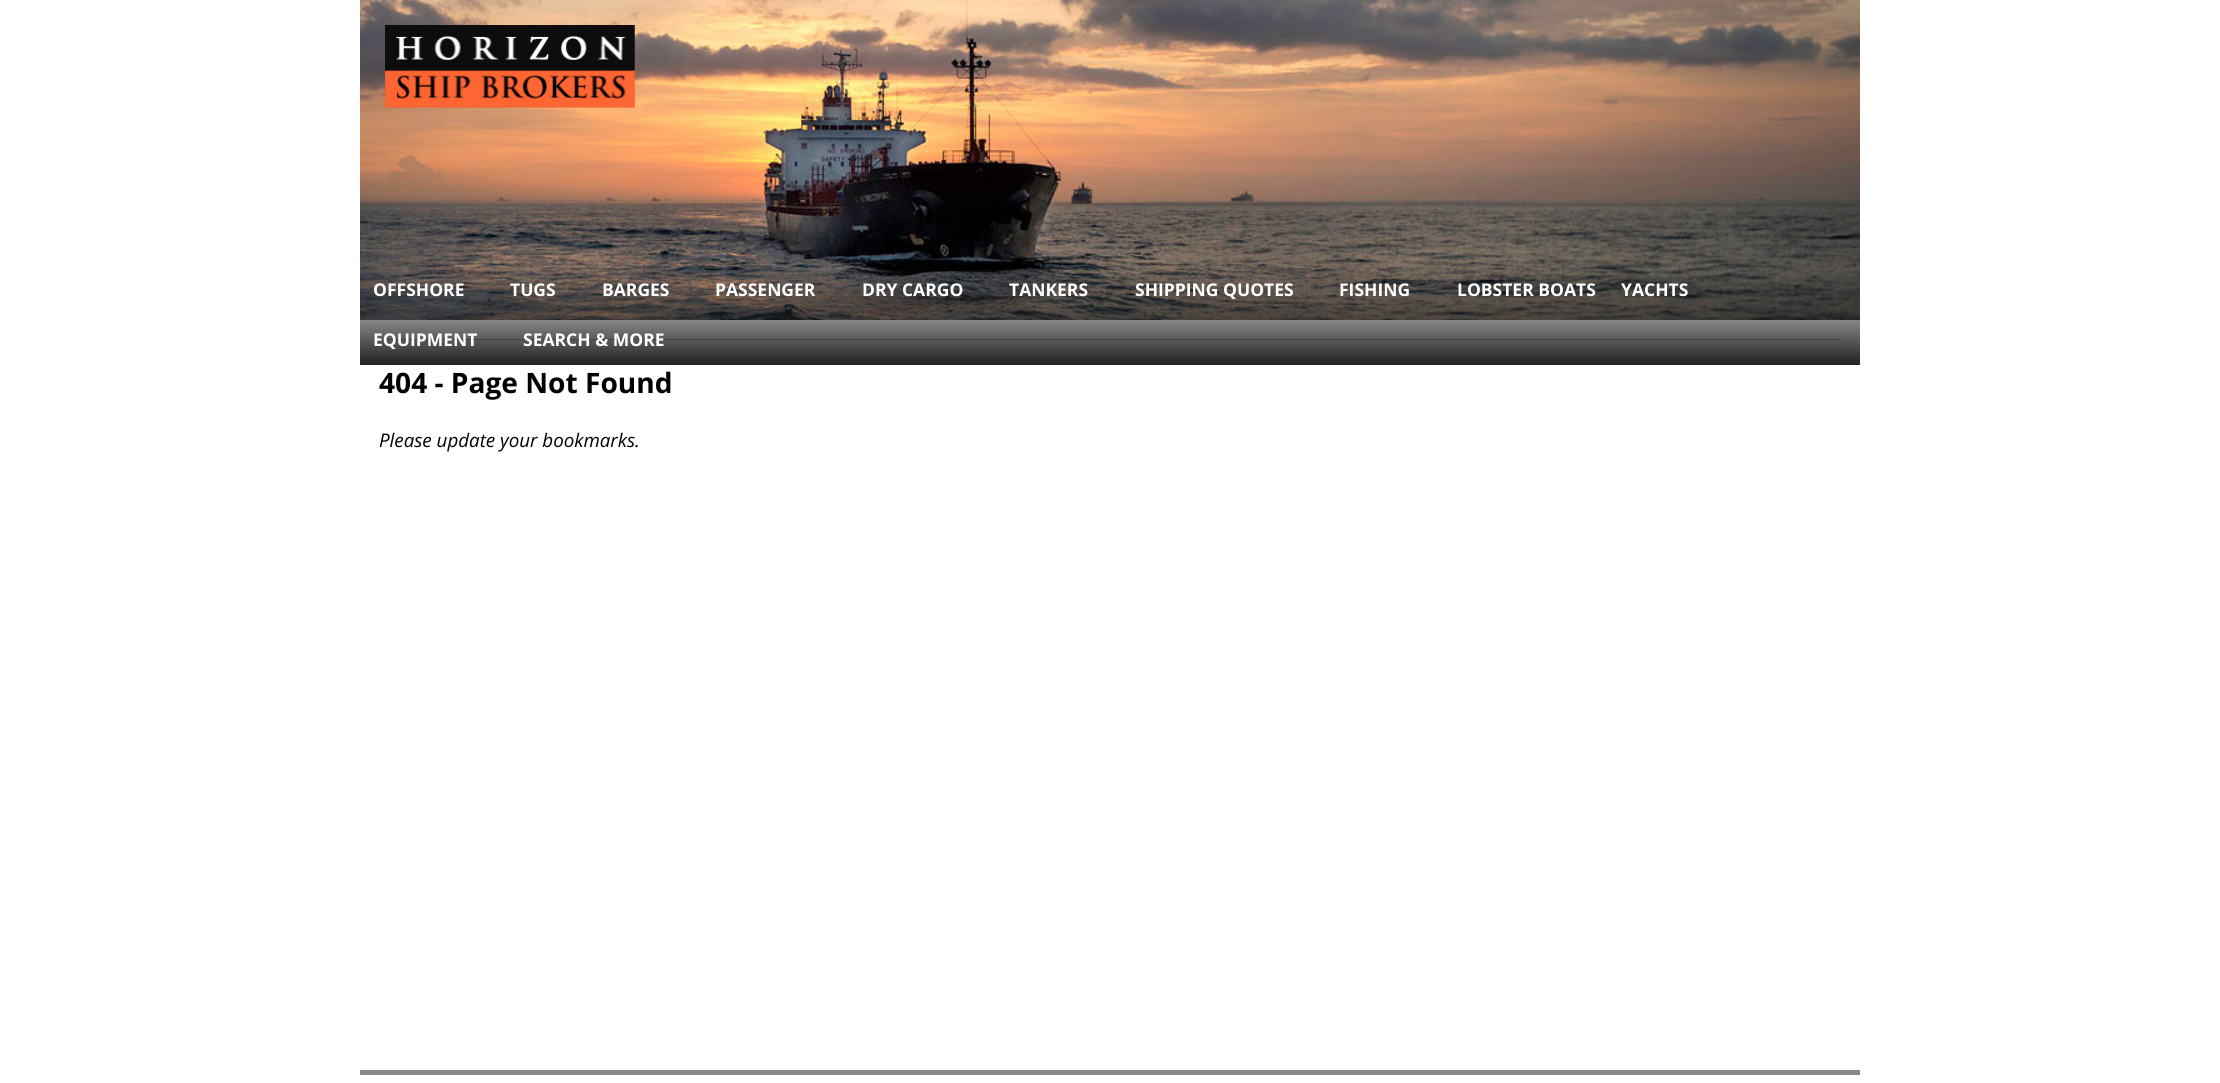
#include <cairo.h>
#include <math.h>
#include <stddef.h>

typedef struct { double x, y; const char *s; } line_t;

static void ink(cairo_t *ctx, unsigned color) {
    cairo_set_source_rgb(ctx, (color >> 16) / 255.0, (color >> 8 & 255) / 255.0, (color & 255) / 255.0);
}

static void paste(cairo_t *ctx, const char *path, double x, double y, double w, double h) {
    cairo_surface_t *image = cairo_image_surface_create_from_png(path);
    cairo_save(ctx);
    cairo_set_source_surface(ctx, image, x, y);
    cairo_rectangle(ctx, x, y, w, h);
    cairo_fill(ctx);
    cairo_restore(ctx);
    cairo_surface_destroy(image);
}

int main(void) {
    cairo_surface_t *surface = cairo_image_surface_create(CAIRO_FORMAT_RGB24, 2220, 1083);
    cairo_t *ctx = cairo_create(surface);
    cairo_font_options_t *options = cairo_font_options_create();
    cairo_font_options_set_hint_metrics(options, CAIRO_HINT_METRICS_OFF);
    cairo_font_options_set_hint_style(options, CAIRO_HINT_STYLE_NONE);
    cairo_set_font_options(ctx, options);
    cairo_set_miter_limit(ctx, 4);
    cairo_pattern_t *gradient;
    ink(ctx, 0xFFFFFF);
    cairo_paint(ctx);
    paste(ctx, "media/1.png", 360, 0, 1500, 320);
    paste(ctx, "media/2.png", 385, 25, 250, 83);
    ink(ctx, 0xA1A1A1);
    cairo_rectangle(ctx, 379, 339, 1462, 1);
    cairo_fill(ctx);
    gradient = cairo_pattern_create_linear(1110, 265, 1110, 365);
    cairo_pattern_add_color_stop_rgba(gradient, 0, 0.133, 0.133, 0.133, 0);
    cairo_pattern_add_color_stop_rgba(gradient, 1, 0.133, 0.133, 0.133, 1);
    cairo_set_source(ctx, gradient);
    cairo_pattern_destroy(gradient);
    cairo_rectangle(ctx, 360, 268, 1500, 97);
    cairo_fill(ctx);
    cairo_select_font_face(ctx, "Open Sans", CAIRO_FONT_SLANT_NORMAL, CAIRO_FONT_WEIGHT_BOLD);
    cairo_set_font_size(ctx, 17.5);
    ink(ctx, 0xFFFFFF);
    {
        static const line_t items[] = {
            {373, 296, "OFFSHORE"},
            {510, 296, "TUGS"},
            {602, 296, "BARGES"},
            {715, 296, "PASSENGER"},
            {862, 296, "DRY CARGO"},
            {1009, 296, "TANKERS"},
            {1135, 296, "SHIPPING QUOTES"},
            {1339, 296, "FISHING"},
            {1457, 296, "LOBSTER BOATS"},
            {1621, 296, "YACHTS"},
            {373, 346, "EQUIPMENT"},
            {523, 346, "SEARCH & MORE"},
        };
        for (size_t i = 0; i < sizeof items / sizeof *items; i++) {
            cairo_move_to(ctx, items[i].x, items[i].y);
            cairo_show_text(ctx, items[i].s);
        }
    }
    cairo_set_font_size(ctx, 28.1);
    ink(ctx, 0x000000);
    cairo_move_to(ctx, 379, 393);
    cairo_show_text(ctx, "404 - Page Not Found");
    cairo_select_font_face(ctx, "Open Sans", CAIRO_FONT_SLANT_ITALIC, CAIRO_FONT_WEIGHT_NORMAL);
    cairo_set_font_size(ctx, 18.75);
    cairo_move_to(ctx, 379, 447);
    cairo_show_text(ctx, "Please update your bookmarks.");
    ink(ctx, 0x888888);
    cairo_rectangle(ctx, 360, 1070, 1500, 5);
    cairo_fill(ctx);
    cairo_surface_write_to_png(surface, "image.png");
    cairo_font_options_destroy(options);
    cairo_destroy(ctx);
    cairo_surface_destroy(surface);
    return 0;
}
